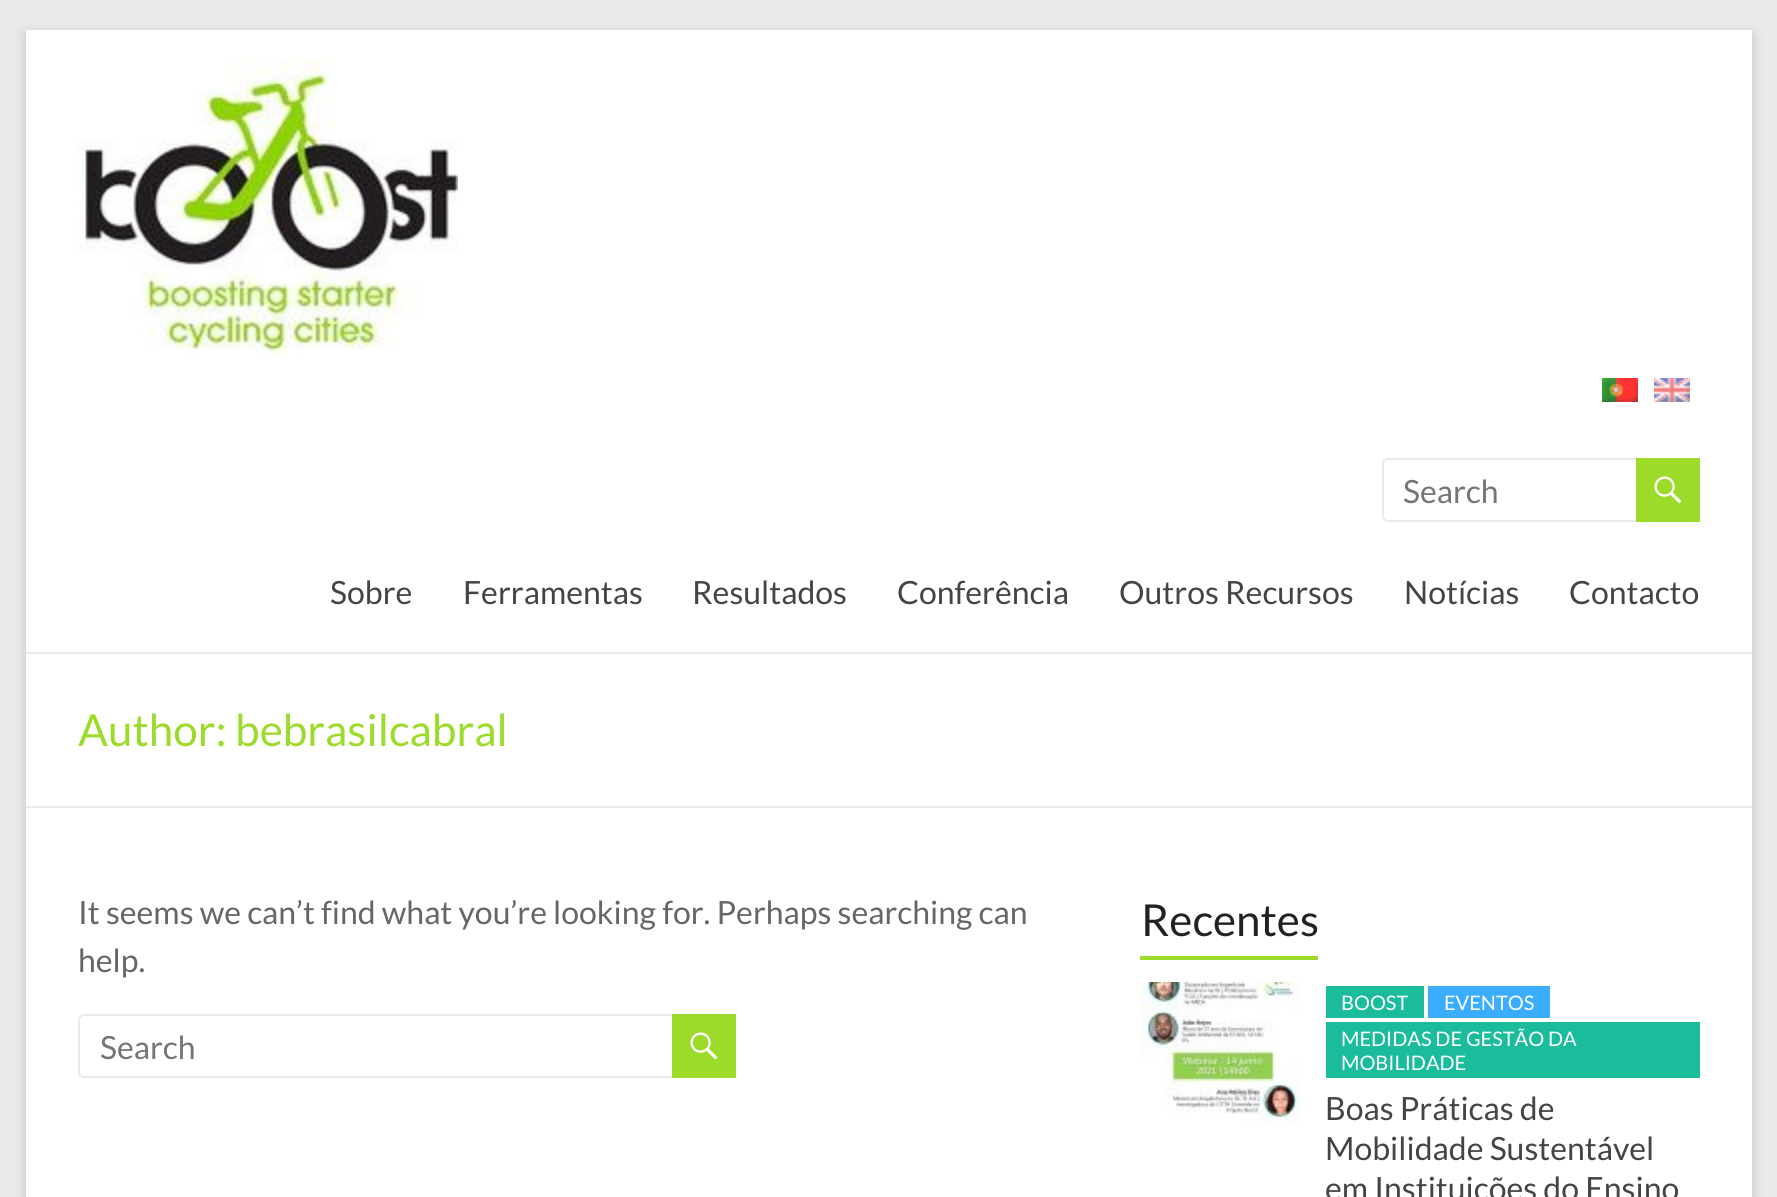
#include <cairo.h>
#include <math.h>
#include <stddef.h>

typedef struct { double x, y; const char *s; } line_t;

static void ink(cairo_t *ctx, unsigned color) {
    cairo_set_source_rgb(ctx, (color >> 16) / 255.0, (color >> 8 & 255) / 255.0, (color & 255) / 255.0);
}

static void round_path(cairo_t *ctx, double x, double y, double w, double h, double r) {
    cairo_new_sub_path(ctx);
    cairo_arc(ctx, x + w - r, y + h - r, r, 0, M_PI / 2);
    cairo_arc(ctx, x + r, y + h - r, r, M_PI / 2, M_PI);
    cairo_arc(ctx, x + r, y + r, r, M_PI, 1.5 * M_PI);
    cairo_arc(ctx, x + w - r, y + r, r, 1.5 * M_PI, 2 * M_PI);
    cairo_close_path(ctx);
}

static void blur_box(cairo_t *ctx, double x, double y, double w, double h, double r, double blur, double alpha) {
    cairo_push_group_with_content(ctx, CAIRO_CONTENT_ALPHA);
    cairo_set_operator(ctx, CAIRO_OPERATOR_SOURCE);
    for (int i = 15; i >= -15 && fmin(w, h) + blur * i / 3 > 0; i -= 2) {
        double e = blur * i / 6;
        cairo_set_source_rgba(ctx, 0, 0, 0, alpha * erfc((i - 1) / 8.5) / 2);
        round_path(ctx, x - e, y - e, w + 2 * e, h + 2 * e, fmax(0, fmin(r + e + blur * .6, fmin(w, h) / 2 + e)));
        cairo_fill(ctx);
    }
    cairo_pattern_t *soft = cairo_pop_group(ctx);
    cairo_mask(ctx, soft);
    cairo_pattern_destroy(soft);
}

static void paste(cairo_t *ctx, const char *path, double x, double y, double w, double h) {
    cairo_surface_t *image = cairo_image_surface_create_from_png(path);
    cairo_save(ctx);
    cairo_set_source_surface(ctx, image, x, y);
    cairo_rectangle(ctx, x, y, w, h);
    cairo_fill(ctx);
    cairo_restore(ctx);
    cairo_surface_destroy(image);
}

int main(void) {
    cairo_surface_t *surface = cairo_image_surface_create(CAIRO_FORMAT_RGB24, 1777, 1197);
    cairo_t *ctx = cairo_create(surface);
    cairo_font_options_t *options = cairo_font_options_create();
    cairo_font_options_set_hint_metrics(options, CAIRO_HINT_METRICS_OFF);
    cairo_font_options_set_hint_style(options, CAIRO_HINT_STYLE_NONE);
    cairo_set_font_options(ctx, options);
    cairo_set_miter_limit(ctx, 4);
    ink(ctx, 0xEAEAEA);
    cairo_paint(ctx);
    ink(ctx, 0x646464);
    blur_box(ctx, 26, 34, 1726, 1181, 0, 6, 0.3);
    ink(ctx, 0xFFFFFF);
    cairo_rectangle(ctx, 26, 30, 1726, 1167);
    cairo_fill(ctx);
    ink(ctx, 0xEAEAEA);
    cairo_rectangle(ctx, 26, 652, 1726, 2);
    cairo_fill(ctx);
    paste(ctx, "media/1.png", 78, 60, 380, 298);
    paste(ctx, "media/2.png", 1602, 378, 36, 24);
    paste(ctx, "media/3.png", 1654, 378, 36, 24);
    round_path(ctx, 1383, 459, 258, 62, 5);
    cairo_stroke(ctx);
    cairo_select_font_face(ctx, "Lato", CAIRO_FONT_SLANT_NORMAL, CAIRO_FONT_WEIGHT_NORMAL);
    cairo_set_font_size(ctx, 32);
    ink(ctx, 0x757575);
    cairo_move_to(ctx, 1403, 503);
    cairo_show_text(ctx, "Search");
    ink(ctx, 0x9DDB2B);
    cairo_rectangle(ctx, 1636, 458, 64, 64);
    cairo_fill(ctx);
    paste(ctx, "media/4.png", 1654, 476, 28, 28);
    ink(ctx, 0x444444);
    {
        static const line_t items[] = {
            {330, 604, "Sobre"},
            {463, 604, "Ferramentas"},
            {692, 604, "Resultados"},
            {897, 604, "Conferência"},
            {1119, 604, "Outros Recursos"},
            {1404, 604, "Notícias"},
            {1569, 604, "Contacto"},
        };
        for (size_t i = 0; i < sizeof items / sizeof *items; i++) {
            cairo_move_to(ctx, items[i].x, items[i].y);
            cairo_show_text(ctx, items[i].s);
        }
    }
    ink(ctx, 0xEAEAEA);
    cairo_rectangle(ctx, 26, 806, 1726, 2);
    cairo_fill(ctx);
    cairo_set_font_size(ctx, 44);
    ink(ctx, 0x9DDB2B);
    cairo_move_to(ctx, 78, 746);
    cairo_show_text(ctx, "Author: bebrasilcabral");
    cairo_set_font_size(ctx, 32);
    ink(ctx, 0x666666);
    cairo_move_to(ctx, 78, 924);
    cairo_show_text(ctx, "It seems we can’t find what you’re looking for. Perhaps searching can");
    cairo_move_to(ctx, 78, 972);
    cairo_show_text(ctx, "help.");
    round_path(ctx, 79, 1015, 598, 62, 5);
    ink(ctx, 0xEAEAEA);
    cairo_stroke(ctx);
    ink(ctx, 0x757575);
    cairo_move_to(ctx, 100, 1059);
    cairo_show_text(ctx, "Search");
    ink(ctx, 0x9DDB2B);
    cairo_rectangle(ctx, 672, 1014, 64, 64);
    cairo_fill(ctx);
    paste(ctx, "media/4.png", 690, 1032, 28, 28);
    cairo_set_font_size(ctx, 44);
    ink(ctx, 0x222222);
    cairo_move_to(ctx, 1141, 936);
    cairo_show_text(ctx, "Recentes");
    ink(ctx, 0x9DDB2B);
    cairo_rectangle(ctx, 1140, 956, 178, 4);
    cairo_fill(ctx);
    paste(ctx, "media/5.png", 1140, 982, 166, 140);
    ink(ctx, 0x1ABC9C);
    cairo_rectangle(ctx, 1326, 986, 98, 32);
    cairo_fill(ctx);
    cairo_set_font_size(ctx, 20);
    ink(ctx, 0xFFFFFF);
    cairo_move_to(ctx, 1341, 1010);
    cairo_show_text(ctx, "BOOST");
    ink(ctx, 0x3AADFF);
    cairo_rectangle(ctx, 1428, 986, 122, 32);
    cairo_fill(ctx);
    ink(ctx, 0xFFFFFF);
    cairo_move_to(ctx, 1444, 1010);
    cairo_show_text(ctx, "EVENTOS");
    ink(ctx, 0x1ABC9C);
    cairo_rectangle(ctx, 1326, 1022, 374, 56);
    cairo_fill(ctx);
    ink(ctx, 0xFFFFFF);
    cairo_move_to(ctx, 1341, 1046);
    cairo_show_text(ctx, "MEDIDAS DE GESTÃO DA");
    cairo_move_to(ctx, 1341, 1070);
    cairo_show_text(ctx, "MOBILIDADE");
    cairo_set_font_size(ctx, 32);
    ink(ctx, 0x444444);
    {
        static const line_t items[] = {
            {1325, 1120, "Boas Práticas de"},
            {1325, 1160, "Mobilidade Sustentável"},
            {1325, 1200, "em Instituições do Ensino"},
        };
        for (size_t i = 0; i < sizeof items / sizeof *items; i++) {
            cairo_move_to(ctx, items[i].x, items[i].y);
            cairo_show_text(ctx, items[i].s);
        }
    }
    cairo_surface_write_to_png(surface, "image.png");
    cairo_font_options_destroy(options);
    cairo_destroy(ctx);
    cairo_surface_destroy(surface);
    return 0;
}
